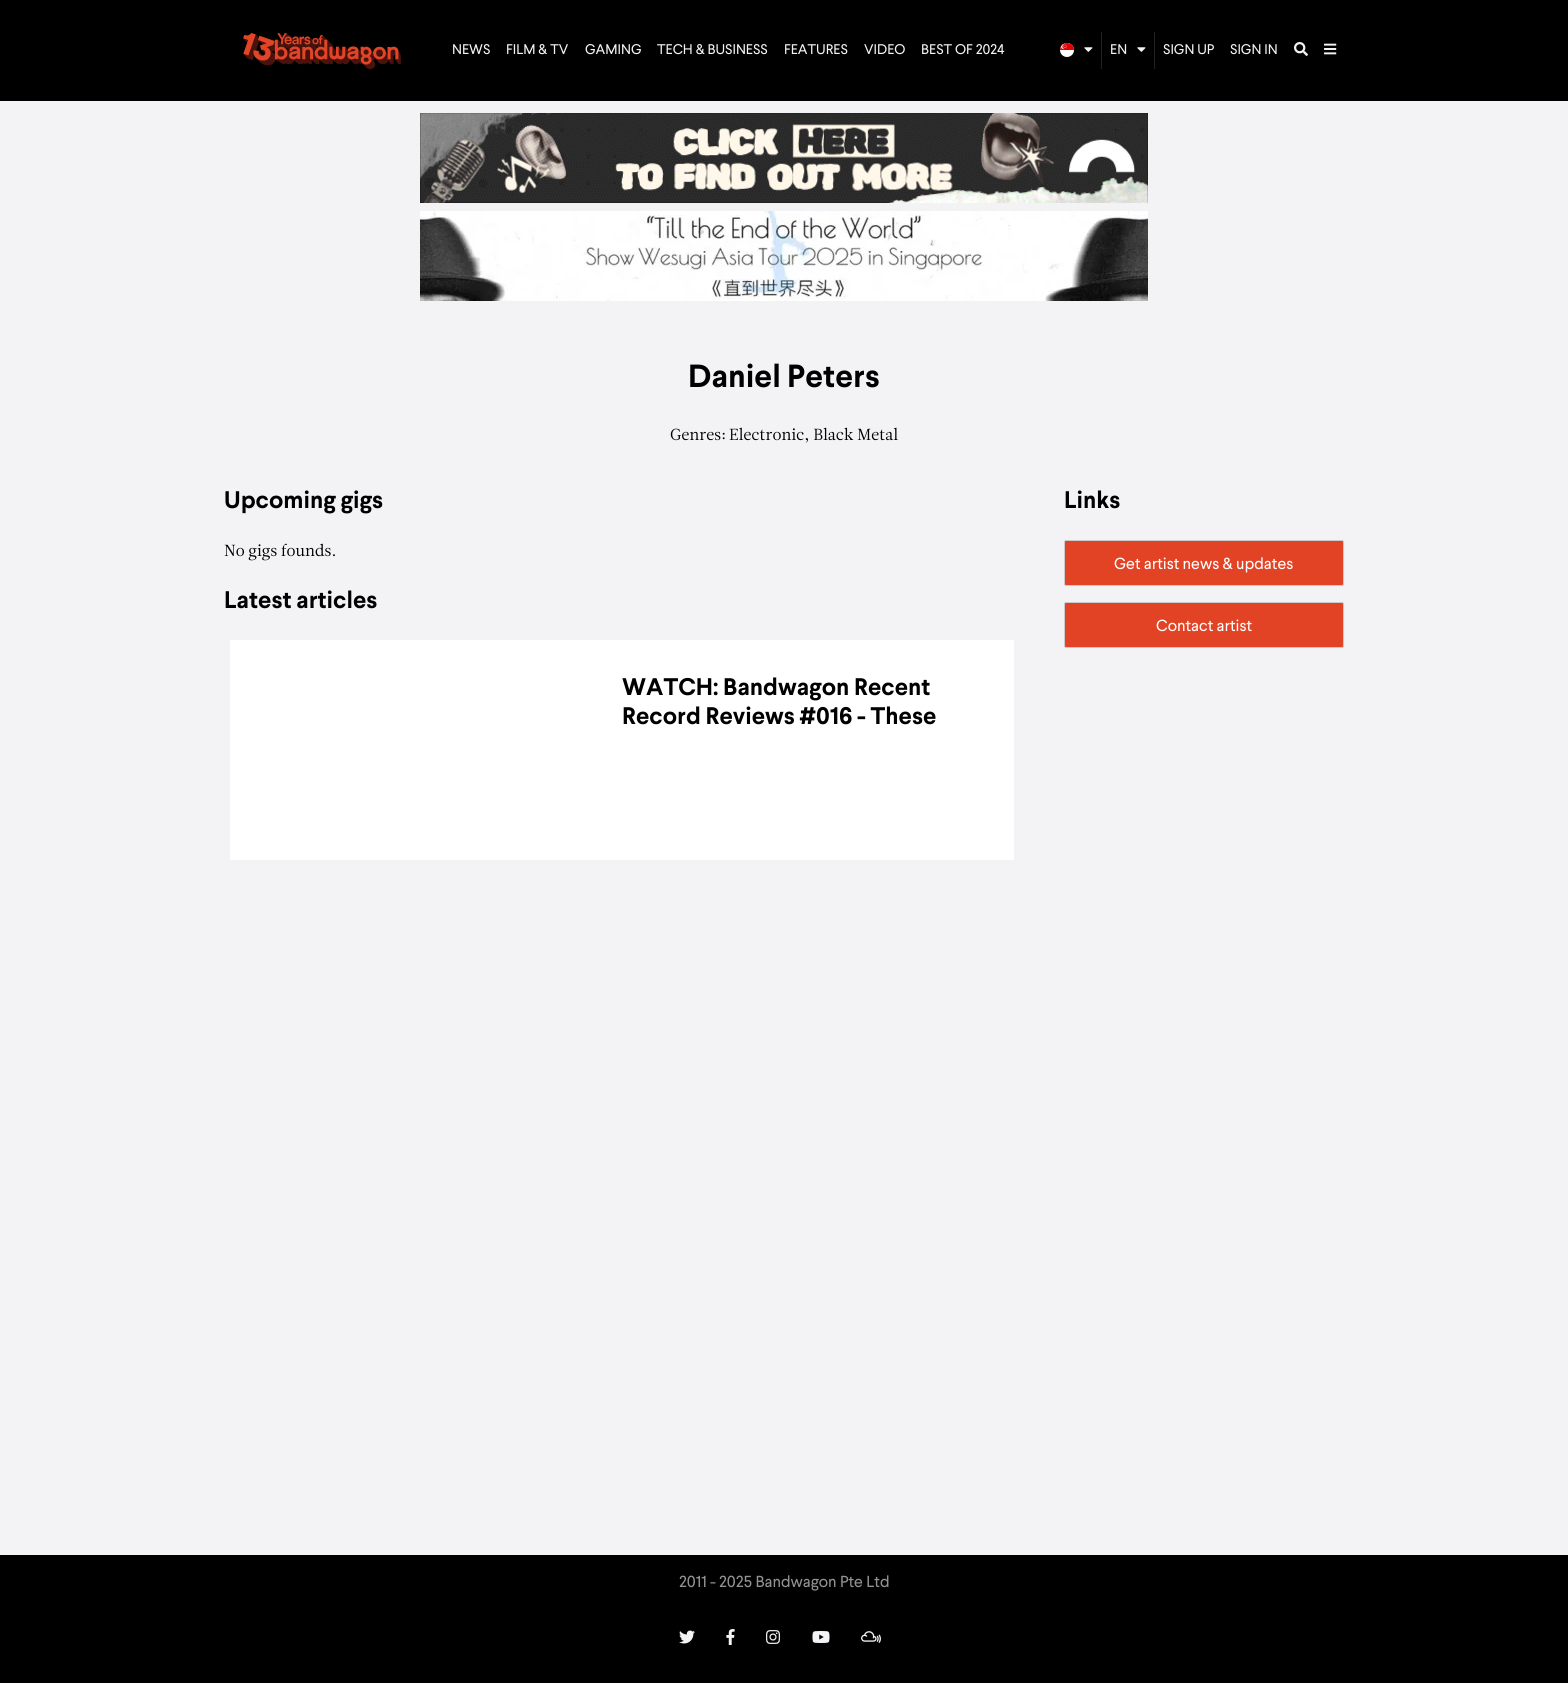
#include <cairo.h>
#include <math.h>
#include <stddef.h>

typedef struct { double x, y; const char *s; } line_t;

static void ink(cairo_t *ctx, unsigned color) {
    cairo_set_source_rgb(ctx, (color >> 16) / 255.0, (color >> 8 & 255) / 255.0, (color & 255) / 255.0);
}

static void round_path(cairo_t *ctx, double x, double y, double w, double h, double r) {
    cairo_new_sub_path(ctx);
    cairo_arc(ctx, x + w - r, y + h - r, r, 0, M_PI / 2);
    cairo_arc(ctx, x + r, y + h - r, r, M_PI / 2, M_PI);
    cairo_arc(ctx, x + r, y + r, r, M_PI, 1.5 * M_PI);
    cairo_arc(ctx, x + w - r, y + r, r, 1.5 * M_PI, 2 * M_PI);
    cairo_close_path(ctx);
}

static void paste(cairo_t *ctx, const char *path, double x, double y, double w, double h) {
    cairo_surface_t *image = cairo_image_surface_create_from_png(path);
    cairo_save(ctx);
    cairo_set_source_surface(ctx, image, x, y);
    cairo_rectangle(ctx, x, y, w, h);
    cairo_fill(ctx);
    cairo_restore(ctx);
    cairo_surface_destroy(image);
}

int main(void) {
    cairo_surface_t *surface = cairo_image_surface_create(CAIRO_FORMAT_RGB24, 1568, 1683);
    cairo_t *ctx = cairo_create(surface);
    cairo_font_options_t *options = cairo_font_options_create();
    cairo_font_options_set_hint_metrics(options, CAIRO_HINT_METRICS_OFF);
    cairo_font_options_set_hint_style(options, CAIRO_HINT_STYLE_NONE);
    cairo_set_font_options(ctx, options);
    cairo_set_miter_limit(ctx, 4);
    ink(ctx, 0xF3F3F5);
    cairo_paint(ctx);
    ink(ctx, 0x000000);
    cairo_rectangle(ctx, 0, 0, 1568, 101);
    cairo_fill(ctx);
    paste(ctx, "media/1.png", 243, 33, 158, 36);
    cairo_select_font_face(ctx, "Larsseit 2", CAIRO_FONT_SLANT_NORMAL, CAIRO_FONT_WEIGHT_NORMAL);
    cairo_set_font_size(ctx, 14);
    ink(ctx, 0xF3F3F5);
    {
        static const line_t items[] = {
            {452, 54, "NEWS"},
            {506, 54, "FILM & TV"},
            {585, 54, "GAMING"},
            {657, 54, "TECH & BUSINESS"},
            {784, 54, "FEATURES"},
            {864, 54, "VIDEO"},
            {921, 54, "BEST OF 2024"},
        };
        for (size_t i = 0; i < sizeof items / sizeof *items; i++) {
            cairo_move_to(ctx, items[i].x, items[i].y);
            cairo_show_text(ctx, items[i].s);
        }
    }
    ink(ctx, 0x222222);
    cairo_rectangle(ctx, 1101, 32, 1, 37);
    cairo_fill(ctx);
    paste(ctx, "media/2.png", 1060, 43, 14, 14);
    paste(ctx, "media/3.png", 1084, 47, 9, 5);
    cairo_rectangle(ctx, 1154, 32, 1, 37);
    cairo_fill(ctx);
    ink(ctx, 0xF3F3F5);
    cairo_move_to(ctx, 1110, 54);
    cairo_show_text(ctx, "EN");
    paste(ctx, "media/3.png", 1137, 47, 9, 5);
    cairo_move_to(ctx, 1163, 54);
    cairo_show_text(ctx, "SIGN UP");
    cairo_move_to(ctx, 1230, 54);
    cairo_show_text(ctx, "SIGN IN");
    paste(ctx, "media/4.png", 1294, 42, 14, 14);
    paste(ctx, "media/5.png", 1324, 43, 13, 12);
    paste(ctx, "media/6.png", 420, 113, 728, 90);
    paste(ctx, "media/7.png", 420, 211, 728, 90);
    cairo_select_font_face(ctx, "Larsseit", CAIRO_FONT_SLANT_NORMAL, CAIRO_FONT_WEIGHT_NORMAL);
    cairo_set_font_size(ctx, 32);
    ink(ctx, 0x000000);
    cairo_move_to(ctx, 688, 387);
    cairo_show_text(ctx, "Daniel Peters");
    paste(ctx, "media/8.png", 670, 428, 55, 13);
    paste(ctx, "media/9.png", 729, 427, 169, 16);
    cairo_set_font_size(ctx, 24);
    cairo_move_to(ctx, 224, 508);
    cairo_show_text(ctx, "Upcoming gigs");
    paste(ctx, "media/10.png", 224, 543, 111, 18);
    cairo_move_to(ctx, 224, 608);
    cairo_show_text(ctx, "Latest articles");
    ink(ctx, 0xFFFFFF);
    cairo_rectangle(ctx, 230, 640, 784, 220);
    cairo_fill(ctx);
    ink(ctx, 0x000000);
    {
        static const line_t items[] = {
            {622, 695, "WATCH: Bandwagon Recent"},
            {622, 724, "Record Reviews #016 - These"},
            {1064, 508, "Links"},
        };
        for (size_t i = 0; i < sizeof items / sizeof *items; i++) {
            cairo_move_to(ctx, items[i].x, items[i].y);
            cairo_show_text(ctx, items[i].s);
        }
    }
    ink(ctx, 0xE24325);
    round_path(ctx, 1064.5, 540.5, 279, 45, 1.5);
    cairo_fill_preserve(ctx);
    ink(ctx, 0xCBCBCB);
    cairo_set_line_width(ctx, 1);
    cairo_stroke(ctx);
    cairo_select_font_face(ctx, "Larsseit 2", CAIRO_FONT_SLANT_NORMAL, CAIRO_FONT_WEIGHT_NORMAL);
    cairo_set_font_size(ctx, 16);
    ink(ctx, 0xFFFFFF);
    cairo_move_to(ctx, 1114, 569);
    cairo_show_text(ctx, "Get artist news & updates");
    ink(ctx, 0xE24325);
    round_path(ctx, 1064.5, 602.5, 279, 45, 1.5);
    cairo_fill_preserve(ctx);
    ink(ctx, 0xCBCBCB);
    cairo_stroke(ctx);
    ink(ctx, 0xFFFFFF);
    cairo_move_to(ctx, 1156, 631);
    cairo_show_text(ctx, "Contact artist");
    ink(ctx, 0x000000);
    cairo_rectangle(ctx, 0, 1555, 1568, 128);
    cairo_fill(ctx);
    ink(ctx, 0x929292);
    cairo_move_to(ctx, 679, 1587);
    cairo_show_text(ctx, "2011 - 2025 Bandwagon Pte Ltd");
    paste(ctx, "media/11.png", 679, 1630, 16, 14);
    paste(ctx, "media/12.png", 726, 1629, 9, 16);
    paste(ctx, "media/13.png", 766, 1630, 14, 14);
    paste(ctx, "media/14.png", 812, 1631, 18, 12);
    paste(ctx, "media/15.png", 861, 1631, 20, 12);
    cairo_surface_write_to_png(surface, "image.png");
    cairo_font_options_destroy(options);
    cairo_destroy(ctx);
    cairo_surface_destroy(surface);
    return 0;
}
